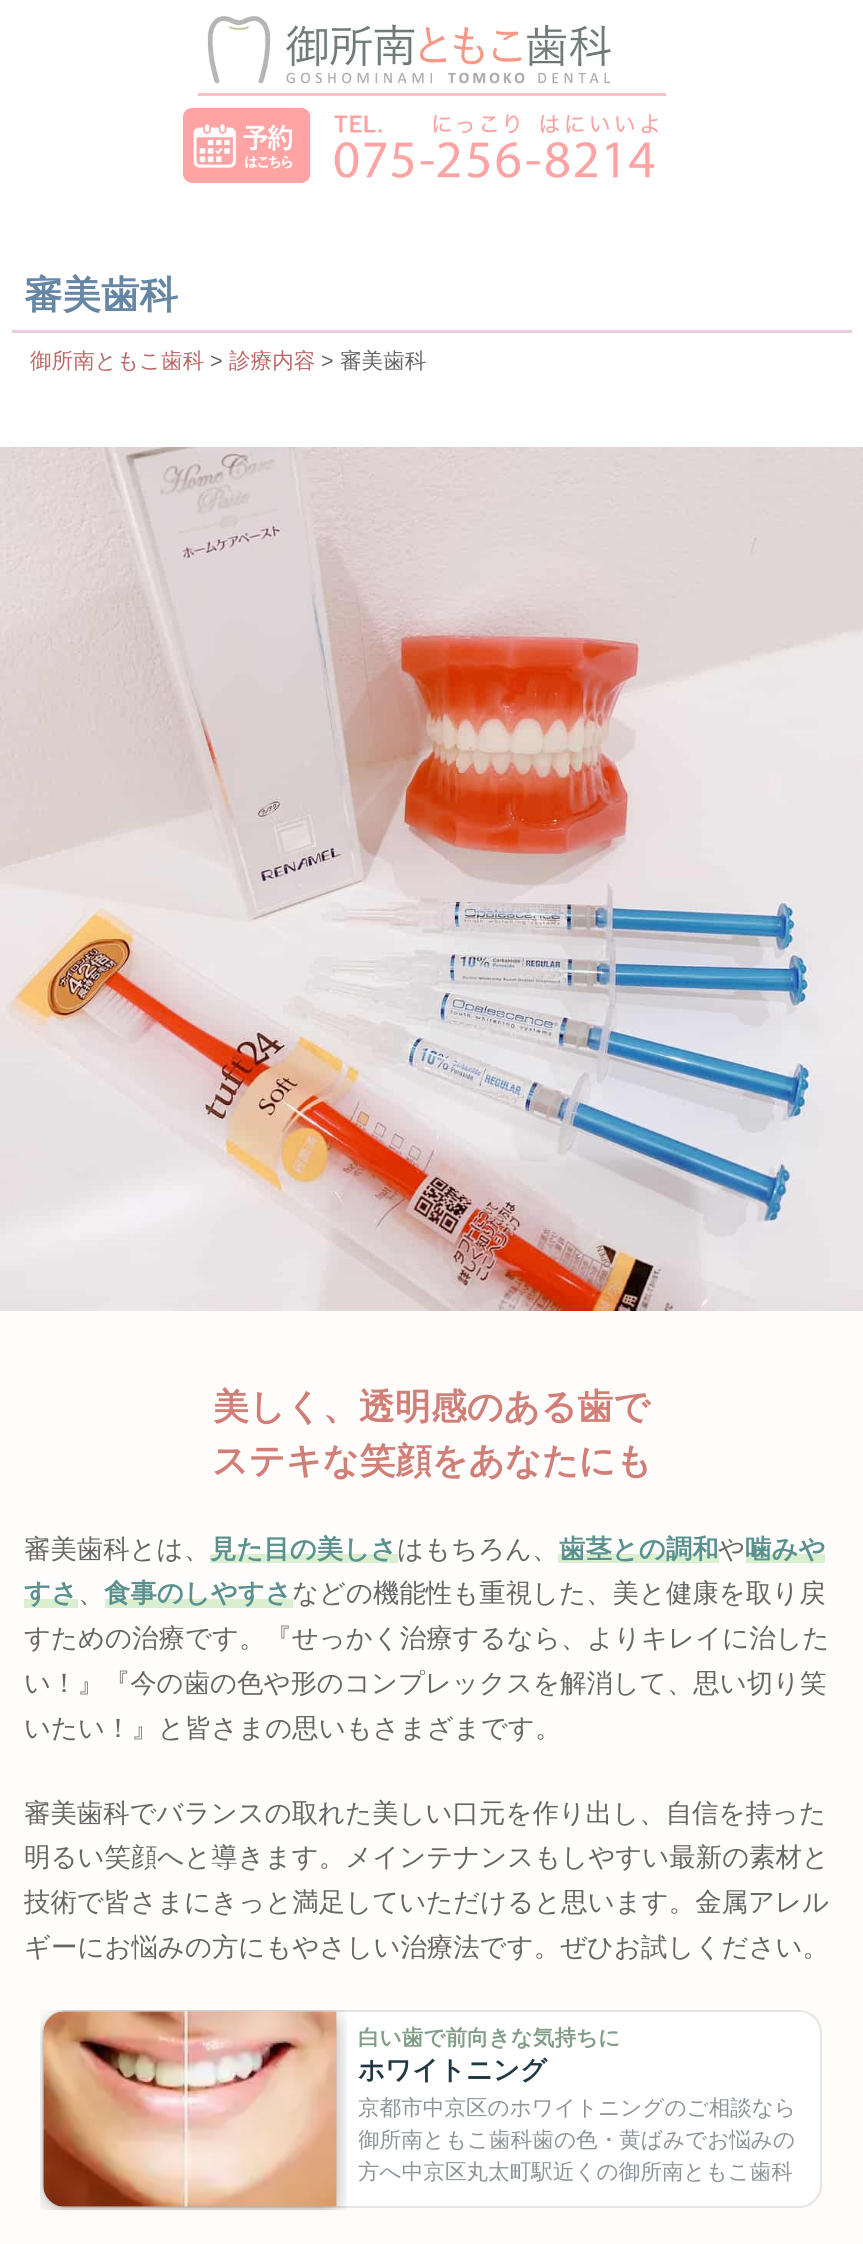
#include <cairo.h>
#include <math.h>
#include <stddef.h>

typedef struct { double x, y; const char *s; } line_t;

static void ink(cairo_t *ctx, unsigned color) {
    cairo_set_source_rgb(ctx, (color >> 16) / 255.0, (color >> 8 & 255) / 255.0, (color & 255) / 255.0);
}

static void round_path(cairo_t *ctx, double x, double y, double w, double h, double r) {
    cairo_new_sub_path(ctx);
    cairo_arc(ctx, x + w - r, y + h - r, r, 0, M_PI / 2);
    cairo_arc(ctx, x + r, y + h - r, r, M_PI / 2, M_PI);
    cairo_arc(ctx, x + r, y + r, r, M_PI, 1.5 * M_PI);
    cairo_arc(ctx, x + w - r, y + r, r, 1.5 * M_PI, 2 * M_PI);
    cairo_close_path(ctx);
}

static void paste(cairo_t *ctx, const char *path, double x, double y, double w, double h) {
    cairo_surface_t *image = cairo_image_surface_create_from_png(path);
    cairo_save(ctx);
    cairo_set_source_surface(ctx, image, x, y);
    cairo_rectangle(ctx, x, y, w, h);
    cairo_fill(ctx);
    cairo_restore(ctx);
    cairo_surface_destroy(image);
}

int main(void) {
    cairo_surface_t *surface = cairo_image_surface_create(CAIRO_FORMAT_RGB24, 863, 2244);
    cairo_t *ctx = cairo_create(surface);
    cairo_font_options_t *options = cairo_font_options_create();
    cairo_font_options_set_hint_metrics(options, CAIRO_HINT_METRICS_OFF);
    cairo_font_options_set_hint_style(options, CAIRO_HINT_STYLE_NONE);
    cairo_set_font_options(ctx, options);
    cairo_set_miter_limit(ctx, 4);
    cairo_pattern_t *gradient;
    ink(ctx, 0xFFFFFF);
    cairo_paint(ctx);
    gradient = cairo_pattern_create_linear(432, 0, 432, 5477);
    cairo_pattern_add_color_stop_rgba(gradient, 0, 1, 1, 1, 1);
    cairo_pattern_add_color_stop_rgba(gradient, 0.01, 1, 1, 1, 1);
    cairo_pattern_add_color_stop_rgba(gradient, 0.61, 1, 0.984, 0.969, 1);
    cairo_pattern_add_color_stop_rgba(gradient, 1, 0.973, 0.969, 0.965, 1);
    cairo_set_source(ctx, gradient);
    cairo_pattern_destroy(gradient);
    cairo_rectangle(ctx, 0, 1082, 863, 1162);
    cairo_fill(ctx);
    paste(ctx, "media/1.png", 207, 16, 404, 69);
    ink(ctx, 0xFFC3C5);
    cairo_rectangle(ctx, 198, 93, 468, 3);
    cairo_fill(ctx);
    paste(ctx, "media/2.png", 183, 108, 128, 75);
    paste(ctx, "media/3.png", 183, 108, 128, 75);
    paste(ctx, "media/4.png", 310, 114, 348, 64);
    cairo_set_source_rgba(ctx, 1, 1, 1, 0.5);
    cairo_rectangle(ctx, 310, 115, 1, 61);
    cairo_fill(ctx);
    ink(ctx, 0xE6CCE0);
    cairo_rectangle(ctx, 12, 330, 840, 3);
    cairo_fill(ctx);
    cairo_select_font_face(ctx, "WenQuanYi Zen Hei", CAIRO_FONT_SLANT_NORMAL, CAIRO_FONT_WEIGHT_BOLD);
    cairo_set_font_size(ctx, 38.5);
    ink(ctx, 0x6686A6);
    cairo_move_to(ctx, 24, 308);
    cairo_show_text(ctx, "審美歯科");
    cairo_select_font_face(ctx, "WenQuanYi Zen Hei Medium", CAIRO_FONT_SLANT_NORMAL, CAIRO_FONT_WEIGHT_NORMAL);
    cairo_set_font_size(ctx, 21.6);
    ink(ctx, 0xBB6666);
    cairo_move_to(ctx, 30, 368);
    cairo_show_text(ctx, "御所南ともこ歯科");
    cairo_select_font_face(ctx, "Liberation Sans", CAIRO_FONT_SLANT_NORMAL, CAIRO_FONT_WEIGHT_NORMAL);
    ink(ctx, 0x666666);
    cairo_move_to(ctx, 210, 368);
    cairo_show_text(ctx, ">");
    cairo_select_font_face(ctx, "WenQuanYi Zen Hei Medium", CAIRO_FONT_SLANT_NORMAL, CAIRO_FONT_WEIGHT_NORMAL);
    ink(ctx, 0xBB6666);
    cairo_move_to(ctx, 229, 368);
    cairo_show_text(ctx, "診療内容");
    cairo_select_font_face(ctx, "Liberation Sans", CAIRO_FONT_SLANT_NORMAL, CAIRO_FONT_WEIGHT_NORMAL);
    ink(ctx, 0x666666);
    cairo_move_to(ctx, 321, 368);
    cairo_show_text(ctx, ">");
    cairo_select_font_face(ctx, "WenQuanYi Zen Hei Medium", CAIRO_FONT_SLANT_NORMAL, CAIRO_FONT_WEIGHT_NORMAL);
    cairo_move_to(ctx, 340, 368);
    cairo_show_text(ctx, "審美歯科");
    paste(ctx, "media/5.png", 0, 447, 863, 864);
    cairo_select_font_face(ctx, "WenQuanYi Zen Hei", CAIRO_FONT_SLANT_NORMAL, CAIRO_FONT_WEIGHT_BOLD);
    cairo_set_font_size(ctx, 36);
    ink(ctx, 0xD17E77);
    cairo_move_to(ctx, 213, 1419);
    cairo_show_text(ctx, "美しく、透明感のある歯で");
    cairo_move_to(ctx, 212, 1473);
    cairo_show_text(ctx, "ステキな笑顔をあなたにも");
    cairo_select_font_face(ctx, "WenQuanYi Zen Hei Medium", CAIRO_FONT_SLANT_NORMAL, CAIRO_FONT_WEIGHT_NORMAL);
    cairo_set_font_size(ctx, 26.4);
    ink(ctx, 0x666666);
    cairo_move_to(ctx, 24, 1558);
    cairo_show_text(ctx, "審美歯科とは、");
    ink(ctx, 0xD9EFCF);
    cairo_rectangle(ctx, 210, 1554, 188, 9);
    cairo_fill(ctx);
    cairo_select_font_face(ctx, "WenQuanYi Zen Hei", CAIRO_FONT_SLANT_NORMAL, CAIRO_FONT_WEIGHT_BOLD);
    ink(ctx, 0x59918F);
    cairo_move_to(ctx, 210, 1558);
    cairo_show_text(ctx, "見た目の美しさ");
    cairo_select_font_face(ctx, "WenQuanYi Zen Hei Medium", CAIRO_FONT_SLANT_NORMAL, CAIRO_FONT_WEIGHT_NORMAL);
    ink(ctx, 0x666666);
    cairo_move_to(ctx, 397, 1558);
    cairo_show_text(ctx, "はもちろん、");
    ink(ctx, 0xD9EFCF);
    cairo_rectangle(ctx, 558, 1554, 161, 9);
    cairo_fill(ctx);
    cairo_select_font_face(ctx, "WenQuanYi Zen Hei", CAIRO_FONT_SLANT_NORMAL, CAIRO_FONT_WEIGHT_BOLD);
    ink(ctx, 0x59918F);
    cairo_move_to(ctx, 559, 1558);
    cairo_show_text(ctx, "歯茎との調和");
    cairo_select_font_face(ctx, "WenQuanYi Zen Hei Medium", CAIRO_FONT_SLANT_NORMAL, CAIRO_FONT_WEIGHT_NORMAL);
    ink(ctx, 0x666666);
    cairo_move_to(ctx, 718, 1558);
    cairo_show_text(ctx, "や");
    ink(ctx, 0xD9EFCF);
    cairo_rectangle(ctx, 746, 1554, 79, 9);
    cairo_fill(ctx);
    cairo_select_font_face(ctx, "WenQuanYi Zen Hei", CAIRO_FONT_SLANT_NORMAL, CAIRO_FONT_WEIGHT_BOLD);
    ink(ctx, 0x59918F);
    cairo_move_to(ctx, 745, 1558);
    cairo_show_text(ctx, "噛みや");
    ink(ctx, 0xD9EFCF);
    cairo_rectangle(ctx, 24, 1599, 54, 9);
    cairo_fill(ctx);
    ink(ctx, 0x59918F);
    cairo_move_to(ctx, 24, 1602);
    cairo_show_text(ctx, "すさ");
    cairo_select_font_face(ctx, "WenQuanYi Zen Hei Medium", CAIRO_FONT_SLANT_NORMAL, CAIRO_FONT_WEIGHT_NORMAL);
    ink(ctx, 0x666666);
    cairo_move_to(ctx, 78, 1602);
    cairo_show_text(ctx, "、");
    ink(ctx, 0xD9EFCF);
    cairo_rectangle(ctx, 105, 1599, 188, 9);
    cairo_fill(ctx);
    cairo_select_font_face(ctx, "WenQuanYi Zen Hei", CAIRO_FONT_SLANT_NORMAL, CAIRO_FONT_WEIGHT_BOLD);
    ink(ctx, 0x59918F);
    cairo_move_to(ctx, 104, 1602);
    cairo_show_text(ctx, "食事のしやすさ");
    cairo_select_font_face(ctx, "WenQuanYi Zen Hei Medium", CAIRO_FONT_SLANT_NORMAL, CAIRO_FONT_WEIGHT_NORMAL);
    ink(ctx, 0x666666);
    {
        static const line_t items[] = {
            {292, 1602, "などの機能性も重視した、美と健康を取り戻"},
            {24, 1647, "すための治療です。『せっかく治療するなら、よりキレイに治した"},
            {24, 1692, "い！』『今の歯の色や形のコンプレックスを解消して、思い切り笑"},
            {24, 1737, "いたい！』と皆さまの思いもさまざまです。"},
            {24, 1822, "審美歯科でバランスの取れた美しい口元を作り出し、自信を持った"},
            {24, 1866, "明るい笑顔へと導きます。メインテナンスもしやすい最新の素材と"},
            {24, 1911, "技術で皆さまにきっと満足していただけると思います。金属アレル"},
            {24, 1956, "ギーにお悩みの方にもやさしい治療法です。ぜひお試しください。"},
        };
        for (size_t i = 0; i < sizeof items / sizeof *items; i++) {
            cairo_move_to(ctx, items[i].x, items[i].y);
            cairo_show_text(ctx, items[i].s);
        }
    }
    ink(ctx, 0xFFFFFF);
    round_path(ctx, 43, 2011, 778, 196, 22);
    cairo_fill_preserve(ctx);
    ink(ctx, 0xE6E5E5);
    cairo_stroke(ctx);
    paste(ctx, "media/6.png", 40, 2010, 307, 200);
    paste(ctx, "media/7.png", 40, 2010, 307, 200);
    cairo_select_font_face(ctx, "WenQuanYi Zen Hei", CAIRO_FONT_SLANT_NORMAL, CAIRO_FONT_WEIGHT_BOLD);
    cairo_set_font_size(ctx, 21.6);
    ink(ctx, 0x809D87);
    cairo_move_to(ctx, 358, 2045);
    cairo_show_text(ctx, "白い歯で前向きな気持ちに");
    cairo_set_font_size(ctx, 26.4);
    ink(ctx, 0x203744);
    cairo_move_to(ctx, 358, 2079);
    cairo_show_text(ctx, "ホワイトニング");
    cairo_select_font_face(ctx, "WenQuanYi Zen Hei Medium", CAIRO_FONT_SLANT_NORMAL, CAIRO_FONT_WEIGHT_NORMAL);
    cairo_set_font_size(ctx, 21.6);
    ink(ctx, 0x8B9397);
    cairo_move_to(ctx, 358, 2115);
    cairo_show_text(ctx, "京都市中京区のホワイトニングのご相談なら");
    cairo_save(ctx);
    cairo_rectangle(ctx, 359, 2093, 450, 97);
    cairo_clip(ctx);
    cairo_move_to(ctx, 358, 2147);
    cairo_show_text(ctx, "御所南ともこ歯科歯の色・黄ばみでお悩みの");
    cairo_restore(ctx);
    cairo_move_to(ctx, 358, 2179);
    cairo_show_text(ctx, "方へ中京区丸太町駅近くの御所南ともこ歯科");
    cairo_surface_write_to_png(surface, "image.png");
    cairo_font_options_destroy(options);
    cairo_destroy(ctx);
    cairo_surface_destroy(surface);
    return 0;
}
